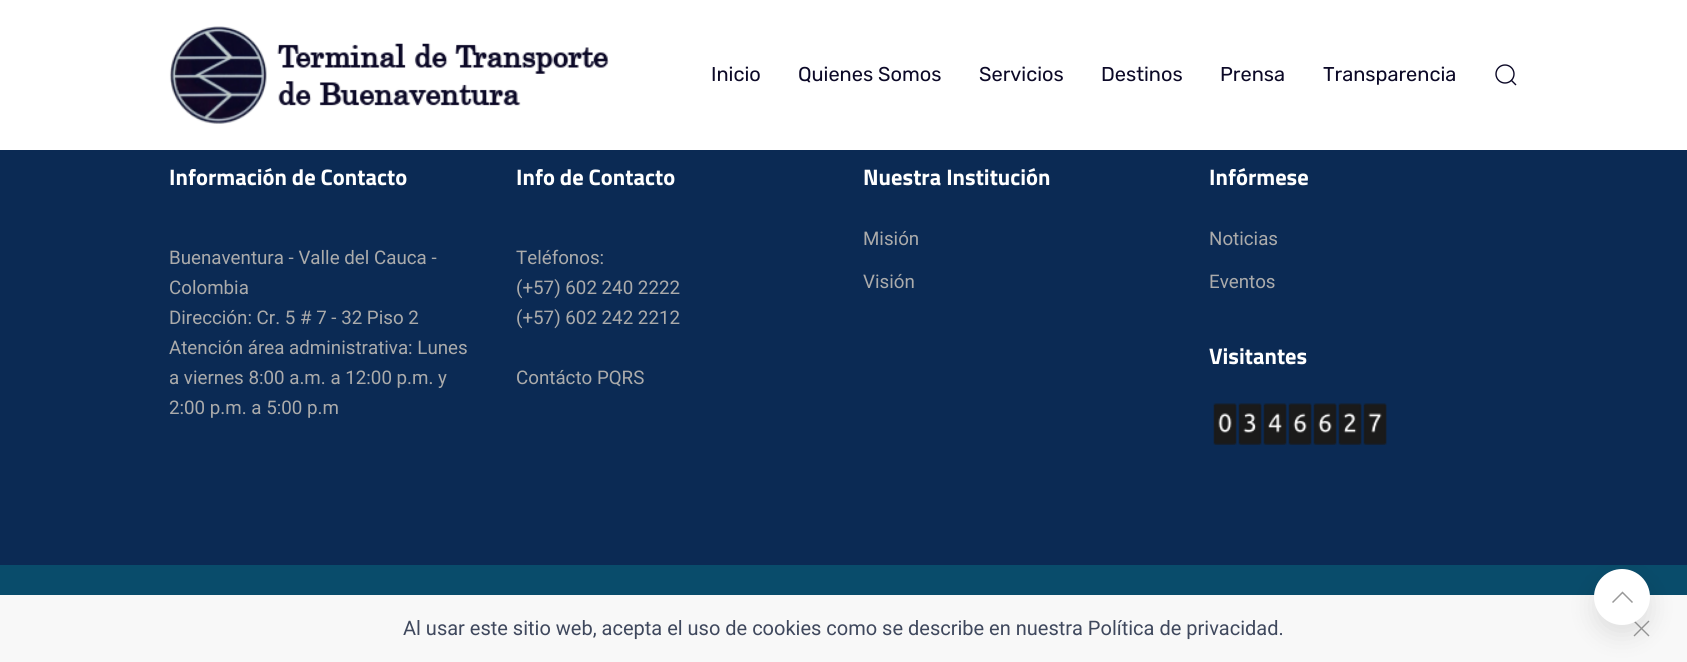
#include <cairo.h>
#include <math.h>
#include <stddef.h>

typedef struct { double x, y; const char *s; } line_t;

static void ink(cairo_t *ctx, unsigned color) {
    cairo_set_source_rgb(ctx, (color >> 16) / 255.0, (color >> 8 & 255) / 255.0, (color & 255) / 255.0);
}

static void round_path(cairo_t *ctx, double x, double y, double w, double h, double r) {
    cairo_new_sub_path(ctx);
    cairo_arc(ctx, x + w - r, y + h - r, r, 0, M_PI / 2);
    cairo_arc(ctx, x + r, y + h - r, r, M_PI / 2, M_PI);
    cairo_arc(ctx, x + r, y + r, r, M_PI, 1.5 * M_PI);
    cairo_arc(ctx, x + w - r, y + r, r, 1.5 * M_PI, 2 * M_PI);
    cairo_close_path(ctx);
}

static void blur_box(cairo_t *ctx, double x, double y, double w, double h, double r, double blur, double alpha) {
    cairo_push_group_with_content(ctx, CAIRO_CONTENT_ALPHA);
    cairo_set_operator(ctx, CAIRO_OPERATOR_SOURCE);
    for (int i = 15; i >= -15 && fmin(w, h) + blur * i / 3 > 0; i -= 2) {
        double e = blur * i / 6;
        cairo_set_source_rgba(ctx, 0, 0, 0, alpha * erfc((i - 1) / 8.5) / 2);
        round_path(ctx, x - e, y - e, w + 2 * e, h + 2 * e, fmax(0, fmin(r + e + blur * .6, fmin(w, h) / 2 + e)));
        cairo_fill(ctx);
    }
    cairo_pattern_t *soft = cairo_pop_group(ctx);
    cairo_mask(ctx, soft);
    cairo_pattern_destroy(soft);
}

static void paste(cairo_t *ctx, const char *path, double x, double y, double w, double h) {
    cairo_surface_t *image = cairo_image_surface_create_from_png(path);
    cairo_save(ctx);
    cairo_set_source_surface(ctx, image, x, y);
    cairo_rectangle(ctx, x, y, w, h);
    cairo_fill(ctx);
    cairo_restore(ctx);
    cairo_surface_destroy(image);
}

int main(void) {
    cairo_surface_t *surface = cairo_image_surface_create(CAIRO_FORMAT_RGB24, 1687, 662);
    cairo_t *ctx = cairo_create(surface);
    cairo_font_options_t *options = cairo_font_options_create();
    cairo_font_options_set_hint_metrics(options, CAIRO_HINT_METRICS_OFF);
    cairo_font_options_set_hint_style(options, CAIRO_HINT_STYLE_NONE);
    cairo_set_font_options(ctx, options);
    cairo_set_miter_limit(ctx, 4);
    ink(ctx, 0x0B2A54);
    cairo_paint(ctx);
    ink(ctx, 0xFFFFFF);
    cairo_rectangle(ctx, 0, 0, 1687, 150);
    cairo_fill(ctx);
    paste(ctx, "media/1.png", 169, 26, 440, 98);
    cairo_select_font_face(ctx, "Rubik", CAIRO_FONT_SLANT_NORMAL, CAIRO_FONT_WEIGHT_NORMAL);
    cairo_set_font_size(ctx, 20);
    ink(ctx, 0x0C0927);
    {
        static const line_t items[] = {
            {711, 81, "Inicio"},
            {798, 81, "Quienes Somos"},
            {979, 81, "Servicios"},
            {1101, 81, "Destinos"},
            {1220, 81, "Prensa"},
            {1323, 81, "Transparencia"},
        };
        for (size_t i = 0; i < sizeof items / sizeof *items; i++) {
            cairo_move_to(ctx, items[i].x, items[i].y);
            cairo_show_text(ctx, items[i].s);
        }
    }
    cairo_new_path(ctx);
    cairo_arc(ctx, 1505, 74, 9, 0, 2 * M_PI);
    cairo_set_line_width(ctx, 1.4);
    cairo_stroke(ctx);
    cairo_new_path(ctx);
    cairo_move_to(ctx, 1511, 80);
    cairo_line_to(ctx, 1516, 85);
    cairo_close_path(ctx);
    cairo_stroke(ctx);
    cairo_select_font_face(ctx, "Titillium Web", CAIRO_FONT_SLANT_NORMAL, CAIRO_FONT_WEIGHT_BOLD);
    cairo_set_font_size(ctx, 22.5);
    ink(ctx, 0xFFFFFF);
    cairo_move_to(ctx, 169, 185);
    cairo_show_text(ctx, "Información de Contacto");
    cairo_select_font_face(ctx, "Roboto", CAIRO_FONT_SLANT_NORMAL, CAIRO_FONT_WEIGHT_NORMAL);
    cairo_set_font_size(ctx, 18.75);
    ink(ctx, 0xABABAB);
    {
        static const line_t items[] = {
            {169, 264, "Buenaventura - Valle del Cauca -"},
            {169, 294, "Colombia"},
            {169, 324, "Dirección: Cr. 5 # 7 - 32 Piso 2"},
            {169, 354, "Atención área administrativa: Lunes"},
            {169, 384, "a viernes 8:00 a.m. a 12:00 p.m. y"},
            {169, 414, "2:00 p.m. a 5:00 p.m"},
        };
        for (size_t i = 0; i < sizeof items / sizeof *items; i++) {
            cairo_move_to(ctx, items[i].x, items[i].y);
            cairo_show_text(ctx, items[i].s);
        }
    }
    cairo_select_font_face(ctx, "Titillium Web", CAIRO_FONT_SLANT_NORMAL, CAIRO_FONT_WEIGHT_BOLD);
    cairo_set_font_size(ctx, 22.5);
    ink(ctx, 0xFFFFFF);
    cairo_move_to(ctx, 516, 185);
    cairo_show_text(ctx, "Info de Contacto");
    cairo_select_font_face(ctx, "Roboto", CAIRO_FONT_SLANT_NORMAL, CAIRO_FONT_WEIGHT_NORMAL);
    cairo_set_font_size(ctx, 18.75);
    ink(ctx, 0xABABAB);
    {
        static const line_t items[] = {
            {516, 264, "Teléfonos:"},
            {516, 294, "(+57) 602 240 2222"},
            {516, 324, "(+57) 602 242 2212"},
            {516, 384, "Contácto PQRS"},
        };
        for (size_t i = 0; i < sizeof items / sizeof *items; i++) {
            cairo_move_to(ctx, items[i].x, items[i].y);
            cairo_show_text(ctx, items[i].s);
        }
    }
    cairo_select_font_face(ctx, "Titillium Web", CAIRO_FONT_SLANT_NORMAL, CAIRO_FONT_WEIGHT_BOLD);
    cairo_set_font_size(ctx, 22.5);
    ink(ctx, 0xFFFFFF);
    cairo_move_to(ctx, 863, 185);
    cairo_show_text(ctx, "Nuestra Institución");
    cairo_select_font_face(ctx, "Roboto", CAIRO_FONT_SLANT_NORMAL, CAIRO_FONT_WEIGHT_NORMAL);
    cairo_set_font_size(ctx, 18.75);
    ink(ctx, 0xABABAB);
    cairo_move_to(ctx, 863, 245);
    cairo_show_text(ctx, "Misión");
    cairo_move_to(ctx, 863, 288);
    cairo_show_text(ctx, "Visión");
    cairo_select_font_face(ctx, "Titillium Web", CAIRO_FONT_SLANT_NORMAL, CAIRO_FONT_WEIGHT_BOLD);
    cairo_set_font_size(ctx, 22.5);
    ink(ctx, 0xFFFFFF);
    cairo_move_to(ctx, 1209, 185);
    cairo_show_text(ctx, "Infórmese");
    cairo_select_font_face(ctx, "Roboto", CAIRO_FONT_SLANT_NORMAL, CAIRO_FONT_WEIGHT_NORMAL);
    cairo_set_font_size(ctx, 18.75);
    ink(ctx, 0xABABAB);
    cairo_move_to(ctx, 1209, 245);
    cairo_show_text(ctx, "Noticias");
    cairo_move_to(ctx, 1209, 288);
    cairo_show_text(ctx, "Eventos");
    cairo_select_font_face(ctx, "Titillium Web", CAIRO_FONT_SLANT_NORMAL, CAIRO_FONT_WEIGHT_BOLD);
    cairo_set_font_size(ctx, 22.5);
    ink(ctx, 0xFFFFFF);
    cairo_move_to(ctx, 1209, 364);
    cairo_show_text(ctx, "Visitantes");
    paste(ctx, "media/2.png", 1213, 403, 24, 42);
    paste(ctx, "media/3.png", 1238, 403, 24, 42);
    paste(ctx, "media/4.png", 1263, 403, 24, 42);
    paste(ctx, "media/5.png", 1288, 403, 24, 42);
    paste(ctx, "media/6.png", 1313, 403, 24, 42);
    paste(ctx, "media/7.png", 1338, 403, 24, 42);
    paste(ctx, "media/8.png", 1363, 403, 24, 42);
    ink(ctx, 0x094C6B);
    cairo_rectangle(ctx, 0, 565, 1687, 30);
    cairo_fill(ctx);
    ink(ctx, 0xF8F8F8);
    cairo_rectangle(ctx, 0, 595, 1687, 67);
    cairo_fill(ctx);
    cairo_select_font_face(ctx, "Roboto", CAIRO_FONT_SLANT_NORMAL, CAIRO_FONT_WEIGHT_NORMAL);
    cairo_set_font_size(ctx, 20);
    ink(ctx, 0x3F485D);
    cairo_move_to(ctx, 403, 635);
    cairo_show_text(ctx, "Al usar este sitio web, acepta el uso de cookies como se describe en nuestra Política de privacidad.");
    cairo_new_path(ctx);
    cairo_move_to(ctx, 1634, 621);
    cairo_line_to(ctx, 1649, 636);
    cairo_move_to(ctx, 1649, 621);
    cairo_line_to(ctx, 1634, 636);
    ink(ctx, 0x999999);
    cairo_stroke(ctx);
    ink(ctx, 0x000000);
    blur_box(ctx, 1594, 579, 56, 56, 28, 12.5, 0.1);
    ink(ctx, 0xFFFFFF);
    cairo_arc(ctx, 1622, 597, 28, 0, 2 * M_PI);
    cairo_fill(ctx);
    cairo_new_path(ctx);
    cairo_move_to(ctx, 1612.5, 602.5);
    cairo_line_to(ctx, 1622.5, 592.5);
    cairo_line_to(ctx, 1632.5, 602.5);
    ink(ctx, 0x999999);
    cairo_set_line_width(ctx, 1.5);
    cairo_stroke(ctx);
    cairo_surface_write_to_png(surface, "image.png");
    cairo_font_options_destroy(options);
    cairo_destroy(ctx);
    cairo_surface_destroy(surface);
    return 0;
}
